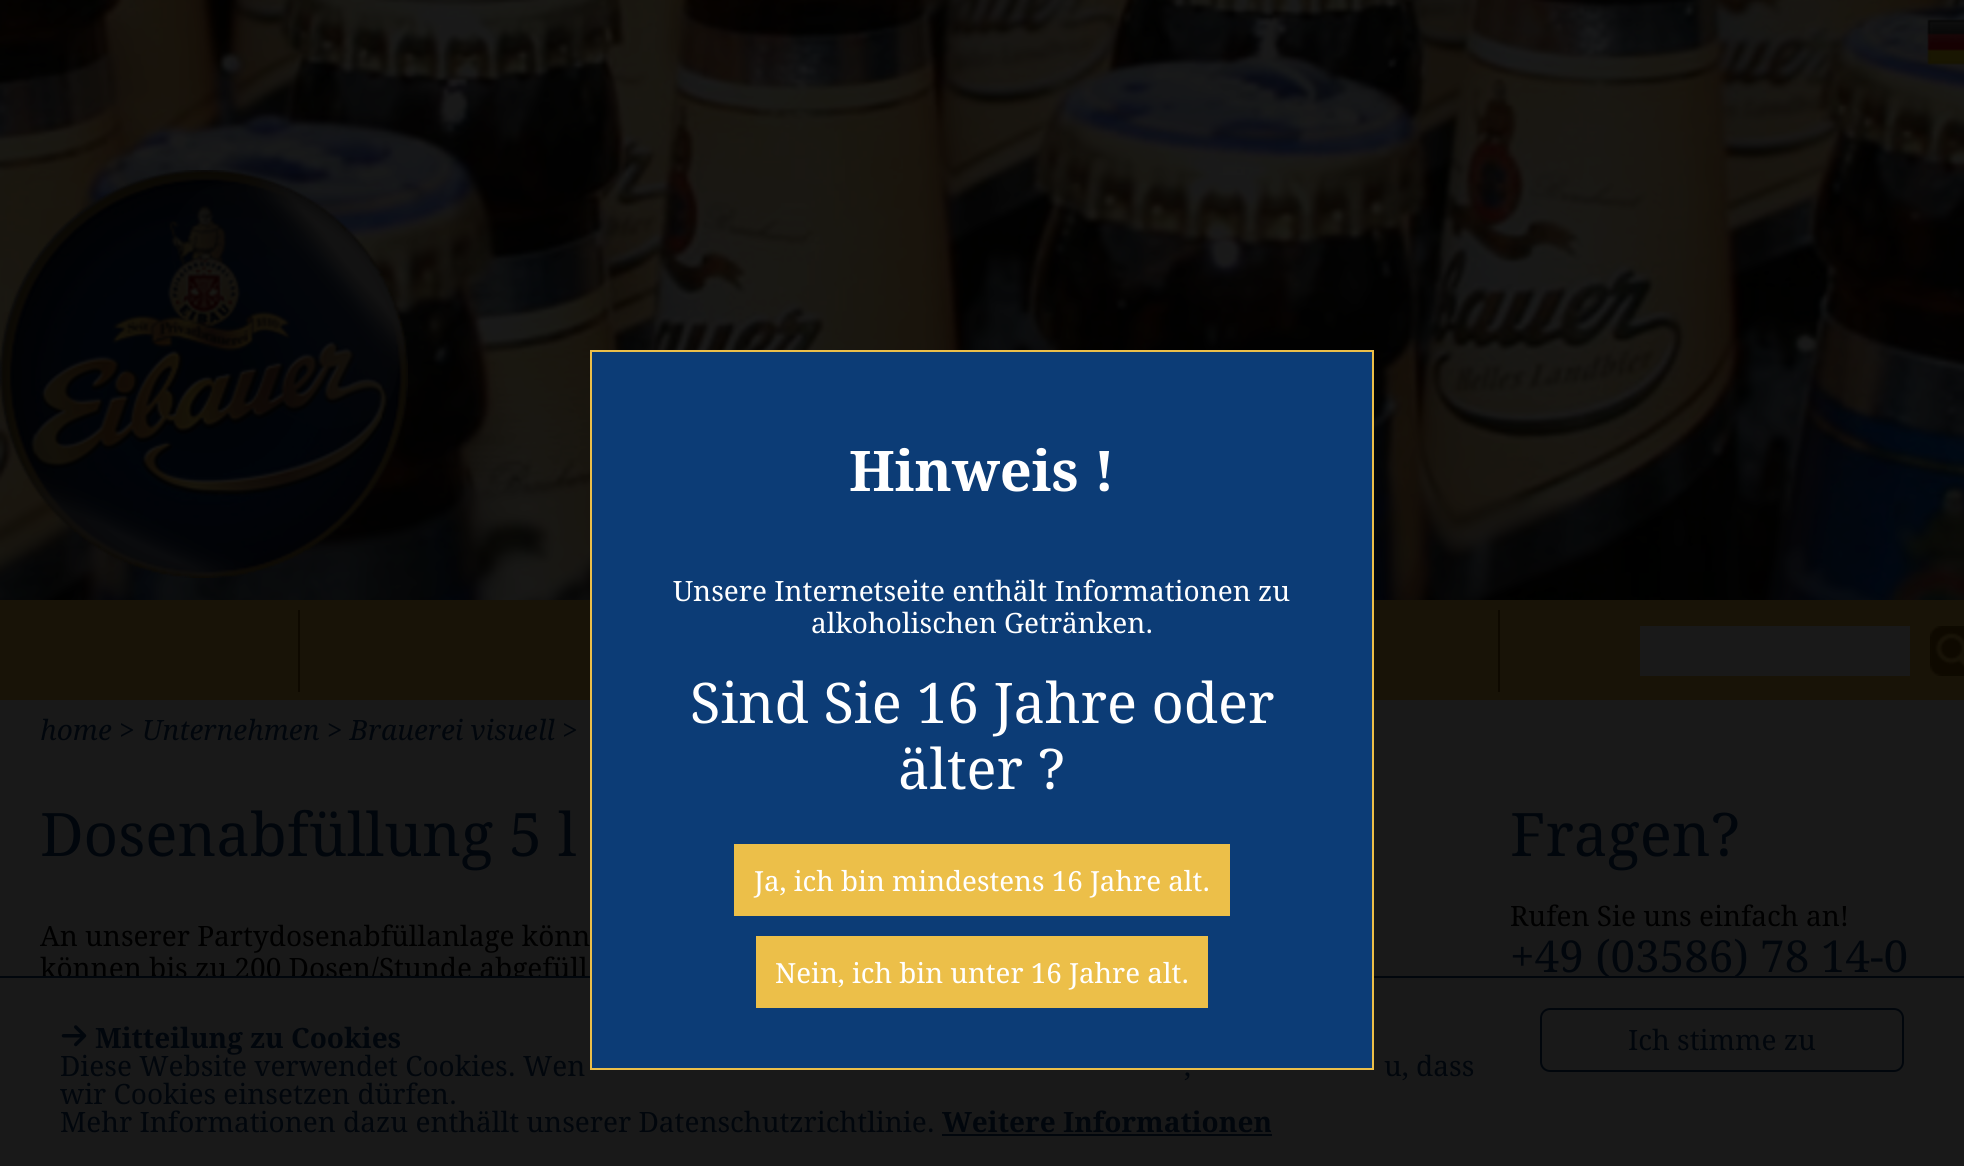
#include <cairo.h>
#include <math.h>
#include <stddef.h>

typedef struct { double x, y; const char *s; } line_t;
typedef struct { double x, y, w, h; unsigned color; } box_t;

static void ink(cairo_t *ctx, unsigned color) {
    cairo_set_source_rgb(ctx, (color >> 16) / 255.0, (color >> 8 & 255) / 255.0, (color & 255) / 255.0);
}

static void round_path(cairo_t *ctx, double x, double y, double w, double h, double r) {
    cairo_new_sub_path(ctx);
    cairo_arc(ctx, x + w - r, y + h - r, r, 0, M_PI / 2);
    cairo_arc(ctx, x + r, y + h - r, r, M_PI / 2, M_PI);
    cairo_arc(ctx, x + r, y + r, r, M_PI, 1.5 * M_PI);
    cairo_arc(ctx, x + w - r, y + r, r, 1.5 * M_PI, 2 * M_PI);
    cairo_close_path(ctx);
}

static void paste(cairo_t *ctx, const char *path, double x, double y, double w, double h) {
    cairo_surface_t *image = cairo_image_surface_create_from_png(path);
    cairo_save(ctx);
    cairo_set_source_surface(ctx, image, x, y);
    cairo_rectangle(ctx, x, y, w, h);
    cairo_fill(ctx);
    cairo_restore(ctx);
    cairo_surface_destroy(image);
}

int main(void) {
    cairo_surface_t *surface = cairo_image_surface_create(CAIRO_FORMAT_RGB24, 1964, 1166);
    cairo_t *ctx = cairo_create(surface);
    cairo_font_options_t *options = cairo_font_options_create();
    cairo_font_options_set_hint_metrics(options, CAIRO_HINT_METRICS_OFF);
    cairo_font_options_set_hint_style(options, CAIRO_HINT_STYLE_NONE);
    cairo_set_font_options(ctx, options);
    cairo_set_miter_limit(ctx, 4);
    ink(ctx, 0x191919);
    cairo_paint(ctx);
    paste(ctx, "media/1.png", 0, 0, 1964, 600);
    ink(ctx, 0x181307);
    cairo_rectangle(ctx, 0, 600, 1964, 100);
    cairo_fill(ctx);
    cairo_select_font_face(ctx, "Droid Serif", CAIRO_FONT_SLANT_NORMAL, CAIRO_FONT_WEIGHT_NORMAL);
    cairo_set_font_size(ctx, 28);
    ink(ctx, 0x000000);
    cairo_move_to(ctx, 40, 978);
    cairo_show_text(ctx, "können bis zu 200 Dosen/Stunde abgefüll");
    ink(ctx, 0x01060C);
    cairo_rectangle(ctx, 0, 976, 1964, 2);
    cairo_fill(ctx);
    ink(ctx, 0x0C3C76);
    cairo_rectangle(ctx, 591, 351, 782, 718);
    cairo_fill_preserve(ctx);
    ink(ctx, 0xECBF49);
    cairo_stroke(ctx);
    cairo_select_font_face(ctx, "Droid Serif", CAIRO_FONT_SLANT_NORMAL, CAIRO_FONT_WEIGHT_BOLD);
    cairo_set_font_size(ctx, 56);
    ink(ctx, 0xFFFFFF);
    cairo_move_to(ctx, 849, 491);
    cairo_show_text(ctx, "Hinweis !");
    cairo_select_font_face(ctx, "Droid Serif", CAIRO_FONT_SLANT_NORMAL, CAIRO_FONT_WEIGHT_NORMAL);
    cairo_set_font_size(ctx, 28);
    cairo_move_to(ctx, 673, 601);
    cairo_show_text(ctx, "Unsere Internetseite enthält Informationen zu");
    cairo_move_to(ctx, 811, 633);
    cairo_show_text(ctx, "alkoholischen Getränken.");
    cairo_set_font_size(ctx, 56);
    cairo_move_to(ctx, 690, 723);
    cairo_show_text(ctx, "Sind Sie 16 Jahre oder");
    cairo_move_to(ctx, 898, 789);
    cairo_show_text(ctx, "älter ?");
    ink(ctx, 0xECBF49);
    cairo_rectangle(ctx, 734, 844, 496, 72);
    cairo_fill(ctx);
    cairo_set_font_size(ctx, 27.75);
    ink(ctx, 0xFFFFFF);
    cairo_move_to(ctx, 754, 891);
    cairo_show_text(ctx, "Ja, ich bin mindestens 16 Jahre alt.");
    ink(ctx, 0xECBF49);
    cairo_rectangle(ctx, 756, 936, 452, 72);
    cairo_fill(ctx);
    ink(ctx, 0xFFFFFF);
    cairo_move_to(ctx, 775, 983);
    cairo_show_text(ctx, "Nein, ich bin unter 16 Jahre alt.");
    paste(ctx, "media/2.png", 1927, 19, 37, 46);
    paste(ctx, "media/3.png", 0, 170, 408, 408);
    {
        static const box_t items[] = {
            {298, 610, 2, 82, 0x0E0900},
            {1498, 610, 2, 82, 0x0E0900},
            {1640, 626, 270, 50, 0x191919},
        };
        for (size_t i = 0; i < sizeof items / sizeof *items; i++) {
            ink(ctx, items[i].color);
            cairo_rectangle(ctx, items[i].x, items[i].y, items[i].w, items[i].h);
            cairo_fill(ctx);
        }
    }
    paste(ctx, "media/4.png", 1930, 626, 34, 50);
    cairo_select_font_face(ctx, "Droid Serif", CAIRO_FONT_SLANT_ITALIC, CAIRO_FONT_WEIGHT_NORMAL);
    cairo_set_font_size(ctx, 28);
    ink(ctx, 0x01060C);
    cairo_move_to(ctx, 40, 740);
    cairo_show_text(ctx, "home > Unternehmen > Brauerei visuell >");
    cairo_select_font_face(ctx, "Droid Serif", CAIRO_FONT_SLANT_NORMAL, CAIRO_FONT_WEIGHT_NORMAL);
    cairo_set_font_size(ctx, 60);
    cairo_move_to(ctx, 40, 856);
    cairo_show_text(ctx, "Dosenabfüllung 5 l");
    cairo_set_font_size(ctx, 28);
    ink(ctx, 0x000000);
    cairo_move_to(ctx, 40, 946);
    cairo_show_text(ctx, "An unserer Partydosenabfüllanlage könn");
    cairo_set_font_size(ctx, 60);
    ink(ctx, 0x01060C);
    cairo_move_to(ctx, 1510, 856);
    cairo_show_text(ctx, "Fragen?");
    cairo_set_font_size(ctx, 28);
    ink(ctx, 0x000000);
    cairo_move_to(ctx, 1510, 926);
    cairo_show_text(ctx, "Rufen Sie uns einfach an!");
    cairo_set_font_size(ctx, 44);
    ink(ctx, 0x01060C);
    cairo_move_to(ctx, 1510, 972);
    cairo_show_text(ctx, "+49 (03586) 78 14-0");
    ink(ctx, 0x191919);
    cairo_rectangle(ctx, 63, 978, 499, 7);
    cairo_fill(ctx);
    paste(ctx, "media/5.png", 61, 1025, 26, 22);
    cairo_select_font_face(ctx, "Droid Serif", CAIRO_FONT_SLANT_NORMAL, CAIRO_FONT_WEIGHT_BOLD);
    cairo_set_font_size(ctx, 28);
    ink(ctx, 0x01060C);
    cairo_move_to(ctx, 95, 1048);
    cairo_show_text(ctx, "Mitteilung zu Cookies");
    cairo_select_font_face(ctx, "Droid Serif", CAIRO_FONT_SLANT_NORMAL, CAIRO_FONT_WEIGHT_NORMAL);
    {
        static const line_t items[] = {
            {60, 1076, "Diese Website verwendet Cookies. Wen"},
            {1184, 1076, ","},
            {1384, 1076, "u, dass"},
            {60, 1104, "wir Cookies einsetzen dürfen."},
            {60, 1132, "Mehr Informationen dazu enthällt unserer Datenschutzrichtlinie."},
        };
        for (size_t i = 0; i < sizeof items / sizeof *items; i++) {
            cairo_move_to(ctx, items[i].x, items[i].y);
            cairo_show_text(ctx, items[i].s);
        }
    }
    cairo_select_font_face(ctx, "Droid Serif", CAIRO_FONT_SLANT_NORMAL, CAIRO_FONT_WEIGHT_BOLD);
    cairo_move_to(ctx, 942, 1132);
    cairo_show_text(ctx, "Weitere Informationen");
    cairo_rectangle(ctx, 942, 1134, 330, 2);
    cairo_fill(ctx);
    round_path(ctx, 1541, 1009, 362, 62, 9);
    cairo_stroke(ctx);
    cairo_select_font_face(ctx, "Droid Serif", CAIRO_FONT_SLANT_NORMAL, CAIRO_FONT_WEIGHT_NORMAL);
    cairo_move_to(ctx, 1628, 1050);
    cairo_show_text(ctx, "Ich stimme zu");
    cairo_surface_write_to_png(surface, "image.png");
    cairo_font_options_destroy(options);
    cairo_destroy(ctx);
    cairo_surface_destroy(surface);
    return 0;
}
